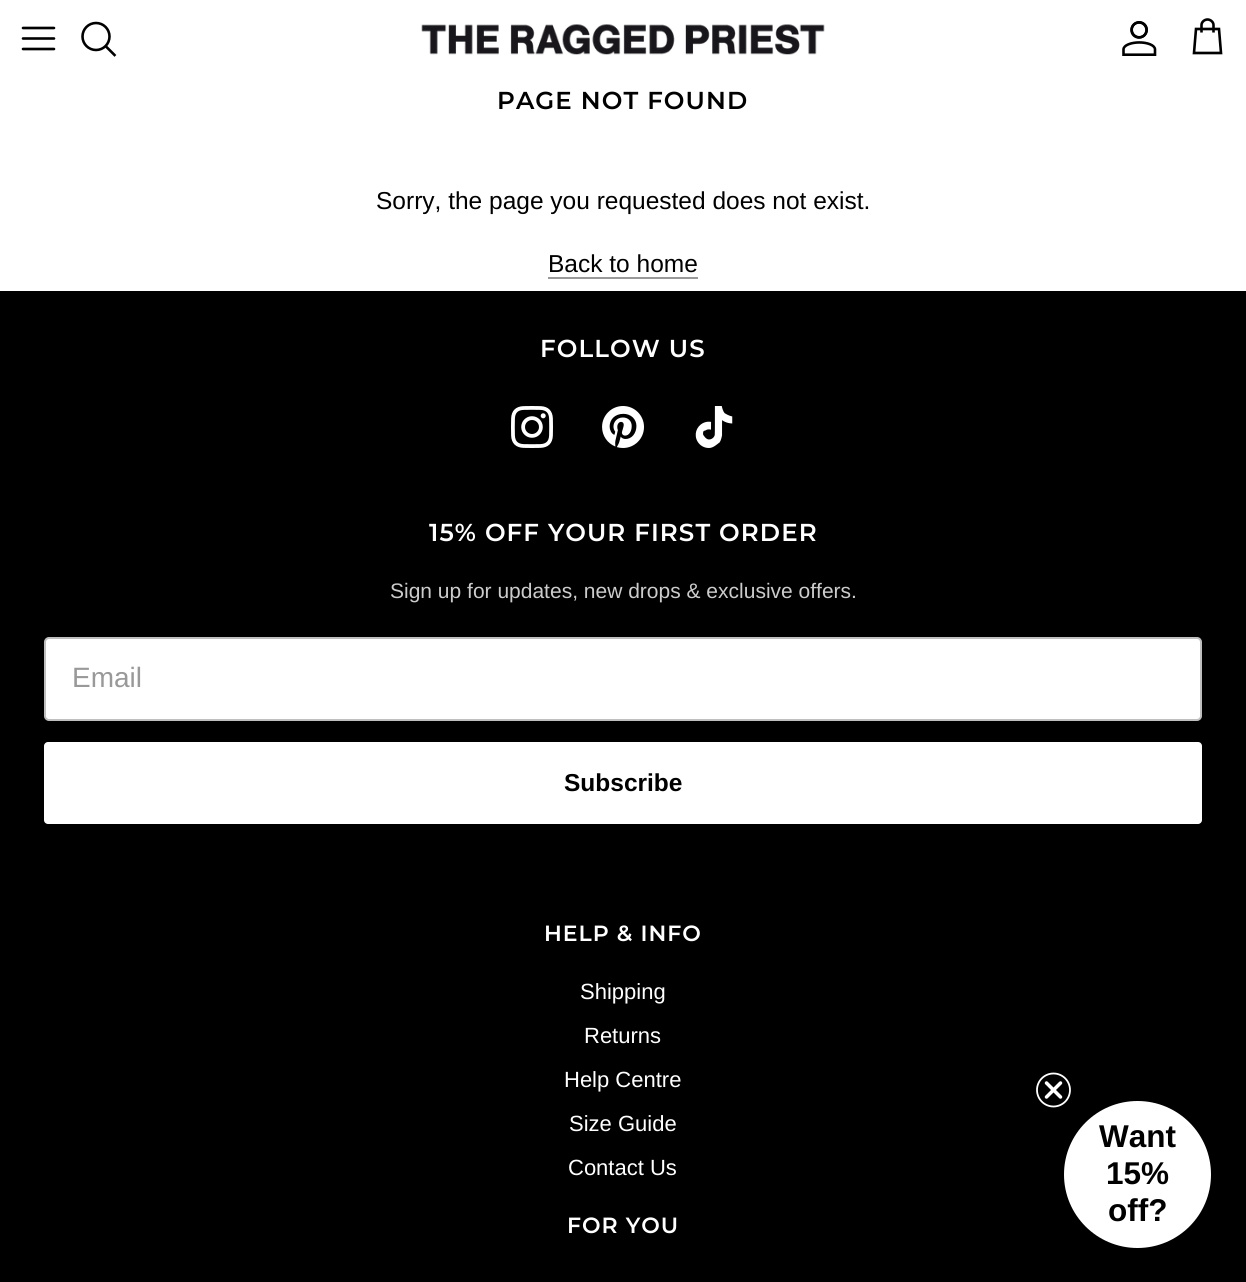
#include <cairo.h>
#include <math.h>
#include <stddef.h>

typedef struct { double x, y; const char *s; } line_t;

static void ink(cairo_t *ctx, unsigned color) {
    cairo_set_source_rgb(ctx, (color >> 16) / 255.0, (color >> 8 & 255) / 255.0, (color & 255) / 255.0);
}

static void write_spaced(cairo_t *ctx, double x, double y, const char *s, double letter, double word) {
    cairo_move_to(ctx, x, y);
    while (*s) {
        char ch[5] = {0};
        int n = 0;
        do ch[n++] = *s++; while ((*s & 0xC0) == 0x80);
        cairo_show_text(ctx, ch);
        cairo_rel_move_to(ctx, letter + word * (*ch == ' '), 0);
    }
}

static void round_path(cairo_t *ctx, double x, double y, double w, double h, double r) {
    cairo_new_sub_path(ctx);
    cairo_arc(ctx, x + w - r, y + h - r, r, 0, M_PI / 2);
    cairo_arc(ctx, x + r, y + h - r, r, M_PI / 2, M_PI);
    cairo_arc(ctx, x + r, y + r, r, M_PI, 1.5 * M_PI);
    cairo_arc(ctx, x + w - r, y + r, r, 1.5 * M_PI, 2 * M_PI);
    cairo_close_path(ctx);
}

static void paste(cairo_t *ctx, const char *path, double x, double y, double w, double h) {
    cairo_surface_t *image = cairo_image_surface_create_from_png(path);
    cairo_save(ctx);
    cairo_set_source_surface(ctx, image, x, y);
    cairo_rectangle(ctx, x, y, w, h);
    cairo_fill(ctx);
    cairo_restore(ctx);
    cairo_surface_destroy(image);
}

int main(void) {
    cairo_surface_t *surface = cairo_image_surface_create(CAIRO_FORMAT_RGB24, 1246, 1282);
    cairo_t *ctx = cairo_create(surface);
    cairo_font_options_t *options = cairo_font_options_create();
    cairo_font_options_set_hint_metrics(options, CAIRO_HINT_METRICS_OFF);
    cairo_font_options_set_hint_style(options, CAIRO_HINT_STYLE_NONE);
    cairo_set_font_options(ctx, options);
    cairo_set_miter_limit(ctx, 4);
    ink(ctx, 0xFFFFFF);
    cairo_paint(ctx);
    cairo_new_path(ctx);
    cairo_move_to(ctx, 23, 38.5);
    cairo_line_to(ctx, 54, 38.5);
    cairo_move_to(ctx, 23, 28);
    cairo_line_to(ctx, 54, 28);
    cairo_move_to(ctx, 23, 49);
    cairo_line_to(ctx, 54, 49);
    ink(ctx, 0x000000);
    cairo_set_line_width(ctx, 2.6);
    cairo_set_line_cap(ctx, CAIRO_LINE_CAP_ROUND);
    cairo_set_line_join(ctx, CAIRO_LINE_JOIN_ROUND);
    cairo_stroke(ctx);
    cairo_arc(ctx, 96, 36.5, 13.5, 0, 2 * M_PI);
    cairo_set_line_cap(ctx, CAIRO_LINE_CAP_BUTT);
    cairo_set_line_join(ctx, CAIRO_LINE_JOIN_MITER);
    cairo_stroke(ctx);
    cairo_new_path(ctx);
    cairo_move_to(ctx, 106.5, 47);
    cairo_line_to(ctx, 114.5, 55);
    cairo_set_line_cap(ctx, CAIRO_LINE_CAP_SQUARE);
    cairo_stroke(ctx);
    paste(ctx, "media/1.png", 421, 24, 404, 31);
    paste(ctx, "media/2.png", 1122, 21, 35, 35);
    cairo_new_path(ctx);
    cairo_move_to(ctx, 1213.5, 32.5);
    cairo_line_to(ctx, 1213.5, 25);
    cairo_curve_to(ctx, 1213.5, 22, 1210.5, 19.5, 1207.5, 19.5);
    cairo_curve_to(ctx, 1204.5, 19.5, 1201.5, 22, 1201.5, 25);
    cairo_line_to(ctx, 1201.5, 32.5);
    cairo_move_to(ctx, 1196, 29);
    cairo_line_to(ctx, 1219, 29);
    cairo_line_to(ctx, 1221, 53);
    cairo_line_to(ctx, 1194, 53);
    cairo_close_path(ctx);
    cairo_set_line_cap(ctx, CAIRO_LINE_CAP_BUTT);
    cairo_stroke(ctx);
    cairo_select_font_face(ctx, "Montserrat SemiBold", CAIRO_FONT_SLANT_NORMAL, CAIRO_FONT_WEIGHT_NORMAL);
    cairo_set_font_size(ctx, 24.5);
    write_spaced(ctx, 497, 109, "PAGE NOT FOUND", 1.1, 0);
    cairo_select_font_face(ctx, "Liberation Sans", CAIRO_FONT_SLANT_NORMAL, CAIRO_FONT_WEIGHT_NORMAL);
    cairo_move_to(ctx, 376, 209);
    cairo_show_text(ctx, "Sorry, the page you requested does not exist.");
    cairo_move_to(ctx, 548, 272);
    cairo_show_text(ctx, "Back to home");
    ink(ctx, 0x999999);
    cairo_rectangle(ctx, 548, 277, 150, 2);
    cairo_fill(ctx);
    ink(ctx, 0x000000);
    cairo_rectangle(ctx, 0, 291, 1246, 991);
    cairo_fill(ctx);
    cairo_select_font_face(ctx, "Montserrat SemiBold", CAIRO_FONT_SLANT_NORMAL, CAIRO_FONT_WEIGHT_NORMAL);
    ink(ctx, 0xFFFFFF);
    write_spaced(ctx, 540, 357, "FOLLOW US", 1.1, 0);
    paste(ctx, "media/3.png", 511, 406, 42, 42);
    paste(ctx, "media/4.png", 602, 406, 42, 42);
    paste(ctx, "media/5.png", 695, 406, 38, 42);
    write_spaced(ctx, 429, 541, "15% OFF YOUR FIRST ORDER", 1.1, 0);
    cairo_select_font_face(ctx, "Liberation Sans", CAIRO_FONT_SLANT_NORMAL, CAIRO_FONT_WEIGHT_NORMAL);
    cairo_set_font_size(ctx, 21);
    ink(ctx, 0xCCCCCC);
    cairo_move_to(ctx, 390, 598);
    cairo_show_text(ctx, "Sign up for updates, new drops & exclusive offers.");
    ink(ctx, 0xFFFFFF);
    round_path(ctx, 45, 638, 1156, 82, 4);
    cairo_fill_preserve(ctx);
    ink(ctx, 0xBFBFBF);
    cairo_set_line_width(ctx, 2);
    cairo_stroke(ctx);
    cairo_set_font_size(ctx, 28);
    ink(ctx, 0x999999);
    cairo_move_to(ctx, 72, 687);
    cairo_show_text(ctx, "Email");
    ink(ctx, 0xFFFFFF);
    round_path(ctx, 44, 742, 1158, 82, 4);
    cairo_fill(ctx);
    cairo_select_font_face(ctx, "Liberation Sans", CAIRO_FONT_SLANT_NORMAL, CAIRO_FONT_WEIGHT_BOLD);
    cairo_set_font_size(ctx, 24.5);
    ink(ctx, 0x000000);
    cairo_move_to(ctx, 564, 791);
    cairo_show_text(ctx, "Subscribe");
    cairo_select_font_face(ctx, "Montserrat SemiBold", CAIRO_FONT_SLANT_NORMAL, CAIRO_FONT_WEIGHT_NORMAL);
    cairo_set_font_size(ctx, 22);
    ink(ctx, 0xFFFFFF);
    write_spaced(ctx, 544, 941, "HELP & INFO", 1, 0);
    cairo_select_font_face(ctx, "Liberation Sans", CAIRO_FONT_SLANT_NORMAL, CAIRO_FONT_WEIGHT_NORMAL);
    {
        static const line_t items[] = {
            {580, 999, "Shipping"},
            {584, 1043, "Returns"},
            {564, 1087, "Help Centre"},
            {569, 1131, "Size Guide"},
            {568, 1175, "Contact Us"},
        };
        for (size_t i = 0; i < sizeof items / sizeof *items; i++) {
            cairo_move_to(ctx, items[i].x, items[i].y);
            cairo_show_text(ctx, items[i].s);
        }
    }
    cairo_select_font_face(ctx, "Montserrat SemiBold", CAIRO_FONT_SLANT_NORMAL, CAIRO_FONT_WEIGHT_NORMAL);
    write_spaced(ctx, 567, 1233, "FOR YOU", 1, 0);
    cairo_new_path(ctx);
    cairo_arc(ctx, 1137.5, 1174.5, 73.5, 0, 2 * M_PI);
    cairo_fill(ctx);
    cairo_arc(ctx, 1053.5, 1090, 16.5, 0, 2 * M_PI);
    cairo_set_line_width(ctx, 1.8);
    cairo_stroke(ctx);
    cairo_new_path(ctx);
    cairo_move_to(ctx, 1046.5, 1083);
    cairo_line_to(ctx, 1060.5, 1097);
    cairo_move_to(ctx, 1046.5, 1097);
    cairo_line_to(ctx, 1060.5, 1083);
    cairo_close_path(ctx);
    cairo_set_line_width(ctx, 3.5);
    cairo_set_line_cap(ctx, CAIRO_LINE_CAP_ROUND);
    cairo_set_line_join(ctx, CAIRO_LINE_JOIN_ROUND);
    cairo_stroke(ctx);
    cairo_select_font_face(ctx, "Liberation Sans", CAIRO_FONT_SLANT_NORMAL, CAIRO_FONT_WEIGHT_BOLD);
    cairo_set_font_size(ctx, 31.5);
    ink(ctx, 0x000000);
    {
        static const line_t items[] = {
            {1099, 1147, "Want"},
            {1106, 1184, "15%"},
            {1108, 1221, "off?"},
        };
        for (size_t i = 0; i < sizeof items / sizeof *items; i++) {
            cairo_move_to(ctx, items[i].x, items[i].y);
            cairo_show_text(ctx, items[i].s);
        }
    }
    cairo_surface_write_to_png(surface, "image.png");
    cairo_font_options_destroy(options);
    cairo_destroy(ctx);
    cairo_surface_destroy(surface);
    return 0;
}
